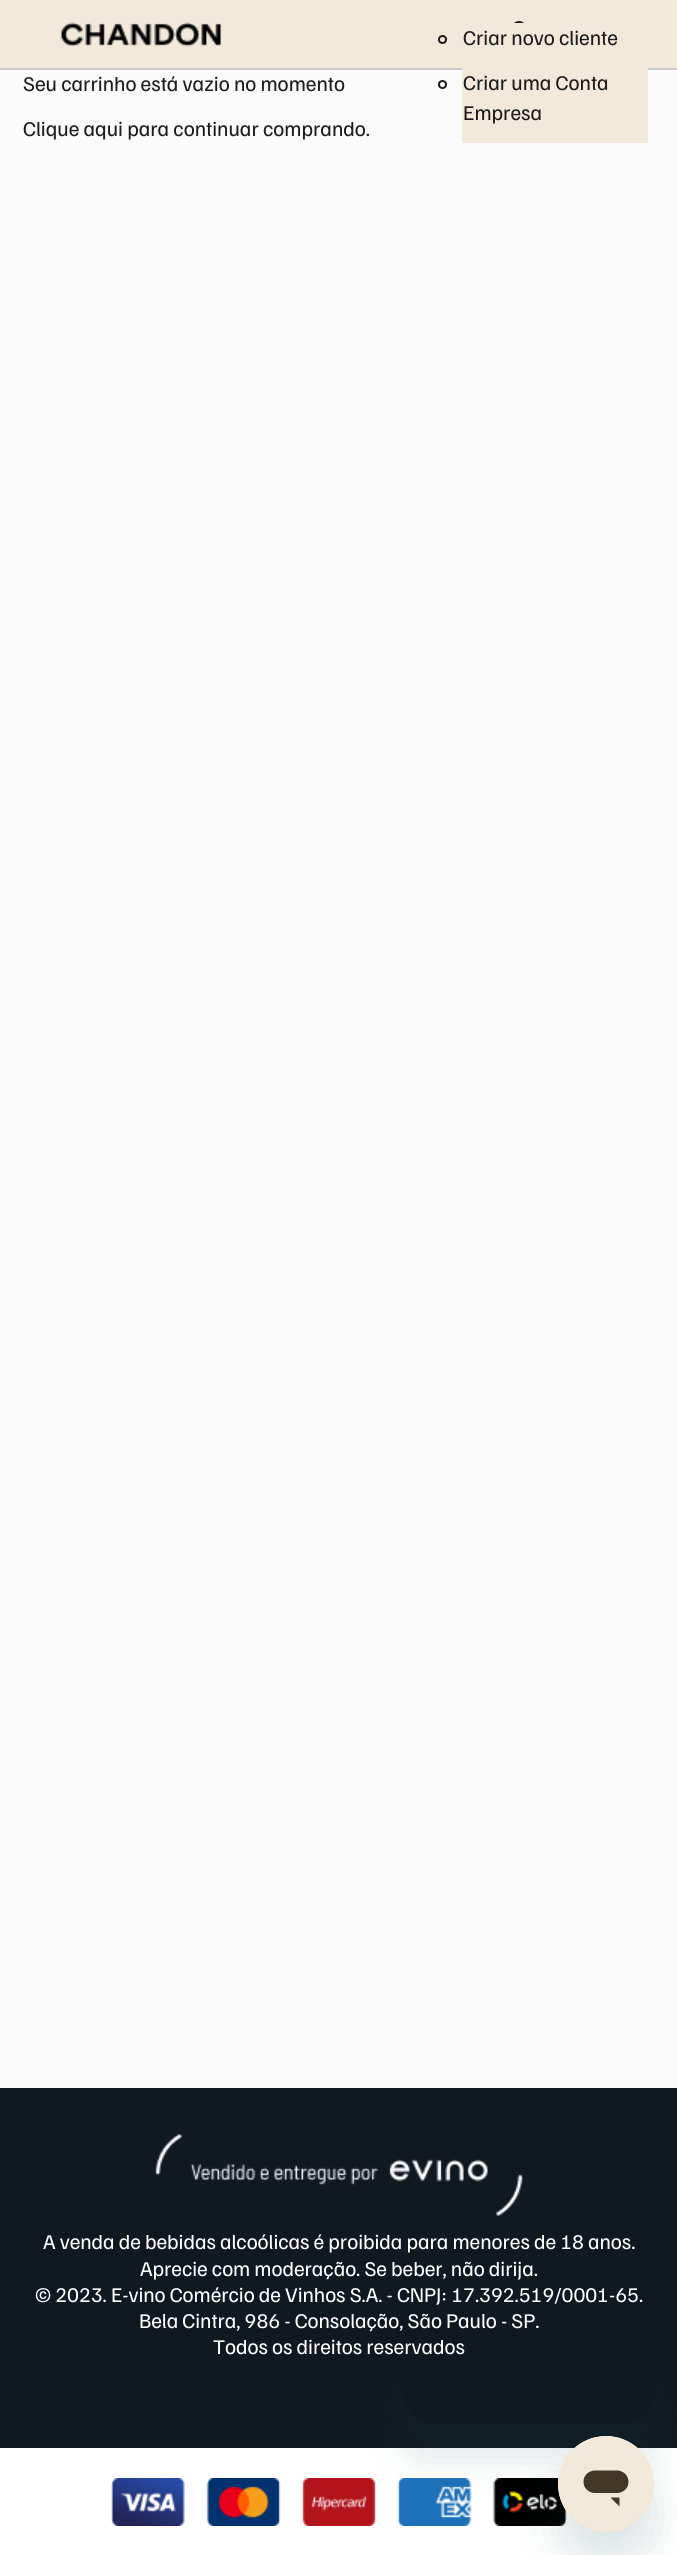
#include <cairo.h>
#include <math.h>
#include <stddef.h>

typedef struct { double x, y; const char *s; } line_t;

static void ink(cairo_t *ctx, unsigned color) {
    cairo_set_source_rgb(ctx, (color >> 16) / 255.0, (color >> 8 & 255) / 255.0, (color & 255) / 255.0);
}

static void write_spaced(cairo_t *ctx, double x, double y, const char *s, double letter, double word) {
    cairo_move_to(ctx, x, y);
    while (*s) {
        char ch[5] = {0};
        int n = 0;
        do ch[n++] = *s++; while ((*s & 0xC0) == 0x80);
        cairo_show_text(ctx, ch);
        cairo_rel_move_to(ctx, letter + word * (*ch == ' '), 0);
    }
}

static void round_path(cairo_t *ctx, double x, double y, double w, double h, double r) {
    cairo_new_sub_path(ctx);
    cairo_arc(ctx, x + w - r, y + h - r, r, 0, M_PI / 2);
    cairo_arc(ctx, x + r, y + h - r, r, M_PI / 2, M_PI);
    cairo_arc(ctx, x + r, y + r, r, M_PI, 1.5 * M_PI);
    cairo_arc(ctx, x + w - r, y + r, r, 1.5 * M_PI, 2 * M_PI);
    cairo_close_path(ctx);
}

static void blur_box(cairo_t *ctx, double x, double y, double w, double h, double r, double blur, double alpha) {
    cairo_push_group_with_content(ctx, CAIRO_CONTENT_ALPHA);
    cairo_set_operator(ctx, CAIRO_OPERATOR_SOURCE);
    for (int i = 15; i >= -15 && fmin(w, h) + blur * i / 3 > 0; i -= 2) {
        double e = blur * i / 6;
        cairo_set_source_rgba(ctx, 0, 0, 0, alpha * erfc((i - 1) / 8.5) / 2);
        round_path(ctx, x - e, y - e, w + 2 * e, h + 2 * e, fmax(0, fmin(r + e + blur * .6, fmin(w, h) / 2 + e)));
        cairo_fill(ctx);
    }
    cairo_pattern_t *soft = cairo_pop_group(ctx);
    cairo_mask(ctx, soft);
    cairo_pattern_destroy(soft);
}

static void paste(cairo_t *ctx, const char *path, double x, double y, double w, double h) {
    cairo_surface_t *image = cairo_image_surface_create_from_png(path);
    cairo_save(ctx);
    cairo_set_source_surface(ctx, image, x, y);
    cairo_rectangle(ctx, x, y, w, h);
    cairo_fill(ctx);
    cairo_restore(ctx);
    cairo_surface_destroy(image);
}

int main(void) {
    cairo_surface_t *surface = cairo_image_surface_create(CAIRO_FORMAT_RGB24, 677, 2555);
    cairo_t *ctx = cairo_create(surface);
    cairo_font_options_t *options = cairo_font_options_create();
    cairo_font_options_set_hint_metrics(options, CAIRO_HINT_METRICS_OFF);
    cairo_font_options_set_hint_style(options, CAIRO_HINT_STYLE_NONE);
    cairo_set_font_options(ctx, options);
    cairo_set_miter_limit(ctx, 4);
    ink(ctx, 0xFAFAFA);
    cairo_paint(ctx);
    cairo_select_font_face(ctx, "Familjen Grotesk", CAIRO_FONT_SLANT_NORMAL, CAIRO_FONT_WEIGHT_NORMAL);
    cairo_set_font_size(ctx, 21);
    ink(ctx, 0x1C1C1C);
    cairo_move_to(ctx, 23, 91);
    cairo_show_text(ctx, "Seu carrinho está vazio no momento");
    cairo_move_to(ctx, 23, 136);
    cairo_show_text(ctx, "Clique aqui para continuar comprando.");
    ink(ctx, 0xCCCCCC);
    cairo_rectangle(ctx, 0, 68, 677, 2);
    cairo_fill(ctx);
    ink(ctx, 0xF2E9DB);
    cairo_rectangle(ctx, 0, 0, 677, 68);
    cairo_fill(ctx);
    paste(ctx, "media/1.png", 60, 22, 162, 25);
    paste(ctx, "media/2.png", 514, 21, 10, 2);
    cairo_rectangle(ctx, 462, 68, 186, 75);
    cairo_fill(ctx);
    cairo_arc(ctx, 442.5, 39.5, 3.5, 0, 2 * M_PI);
    ink(ctx, 0x1C1C1C);
    cairo_stroke(ctx);
    cairo_move_to(ctx, 463, 45);
    cairo_show_text(ctx, "Criar novo cliente");
    cairo_new_path(ctx);
    cairo_arc(ctx, 442.5, 84.5, 3.5, 0, 2 * M_PI);
    cairo_stroke(ctx);
    cairo_move_to(ctx, 463, 90);
    cairo_show_text(ctx, "Criar uma Conta");
    cairo_move_to(ctx, 463, 120);
    cairo_show_text(ctx, "Empresa");
    ink(ctx, 0x101820);
    cairo_rectangle(ctx, 0, 2088, 677, 360);
    cairo_fill(ctx);
    paste(ctx, "media/3.png", 155, 2134, 368, 82);
    ink(ctx, 0xFFFFFF);
    {
        static const line_t items[] = {
            {43, 2249, "A venda de bebidas alcoólicas é proibida para menores de 18 anos."},
            {140, 2276, "Aprecie com moderação. Se beber, não dirija."},
            {35, 2302, "© 2023. E-vino Comércio de Vinhos S.A. - CNPJ: 17.392.519/0001-65."},
            {139, 2328, "Bela Cintra, 986 - Consolação, São Paulo - SP."},
            {213, 2354, "Todos os direitos reservados"},
        };
        for (size_t i = 0; i < sizeof items / sizeof *items; i++) {
            write_spaced(ctx, items[i].x, items[i].y, items[i].s, -0.05, 0);
        }
    }
    cairo_rectangle(ctx, 0, 2448, 677, 107);
    cairo_fill(ctx);
    paste(ctx, "media/4.png", 111, 2478, 456, 48);
    cairo_save(ctx);
    cairo_set_fill_rule(ctx, CAIRO_FILL_RULE_EVEN_ODD);
    cairo_new_path(ctx);
    cairo_move_to(ctx, 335, 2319);
    cairo_line_to(ctx, 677, 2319);
    cairo_line_to(ctx, 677, 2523);
    cairo_line_to(ctx, 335, 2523);
    cairo_close_path(ctx);
    cairo_move_to(ctx, 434, 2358);
    cairo_line_to(ctx, 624, 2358);
    cairo_curve_to(ctx, 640.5, 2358, 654, 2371.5, 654, 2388);
    cairo_line_to(ctx, 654, 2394);
    cairo_curve_to(ctx, 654, 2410.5, 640.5, 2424, 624, 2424);
    cairo_line_to(ctx, 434, 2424);
    cairo_curve_to(ctx, 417.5, 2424, 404, 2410.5, 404, 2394);
    cairo_line_to(ctx, 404, 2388);
    cairo_curve_to(ctx, 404, 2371.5, 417.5, 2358, 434, 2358);
    cairo_close_path(ctx);
    cairo_clip(ctx);
    ink(ctx, 0x17494D);
    blur_box(ctx, 404, 2388, 250, 66, 30, 22.5, 0.15);
    cairo_restore(ctx);
    ink(ctx, 0x17494D);
    blur_box(ctx, 558, 2466, 96, 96, 48, 22.5, 0.15);
    paste(ctx, "media/5.png", 558, 2436, 96, 96);
    cairo_surface_write_to_png(surface, "image.png");
    cairo_font_options_destroy(options);
    cairo_destroy(ctx);
    cairo_surface_destroy(surface);
    return 0;
}
